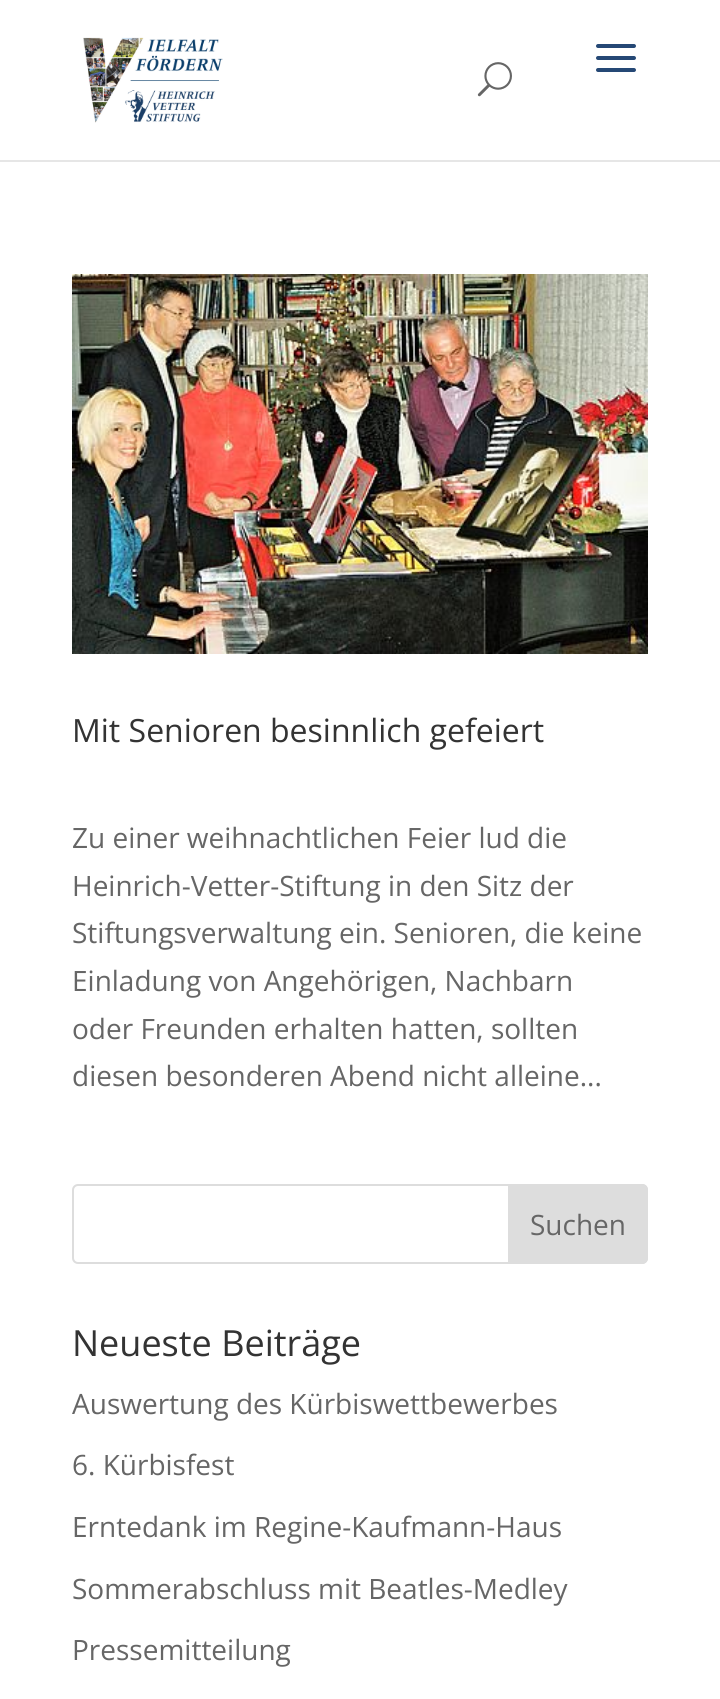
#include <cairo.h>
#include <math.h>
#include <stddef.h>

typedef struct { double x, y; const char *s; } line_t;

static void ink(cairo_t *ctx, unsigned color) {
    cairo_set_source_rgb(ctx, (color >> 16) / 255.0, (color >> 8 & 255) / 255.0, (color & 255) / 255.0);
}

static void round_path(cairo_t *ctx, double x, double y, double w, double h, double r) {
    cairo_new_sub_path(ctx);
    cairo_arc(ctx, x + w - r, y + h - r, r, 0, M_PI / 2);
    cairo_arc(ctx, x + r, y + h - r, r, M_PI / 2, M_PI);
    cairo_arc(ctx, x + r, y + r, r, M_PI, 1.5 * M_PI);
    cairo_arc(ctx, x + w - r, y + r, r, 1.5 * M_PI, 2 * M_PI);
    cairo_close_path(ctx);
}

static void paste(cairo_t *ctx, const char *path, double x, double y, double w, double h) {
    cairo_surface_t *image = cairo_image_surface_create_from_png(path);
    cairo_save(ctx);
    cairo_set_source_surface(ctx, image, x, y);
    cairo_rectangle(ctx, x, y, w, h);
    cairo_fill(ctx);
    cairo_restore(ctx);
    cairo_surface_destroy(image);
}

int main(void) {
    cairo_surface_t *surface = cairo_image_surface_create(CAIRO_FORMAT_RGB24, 720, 1699);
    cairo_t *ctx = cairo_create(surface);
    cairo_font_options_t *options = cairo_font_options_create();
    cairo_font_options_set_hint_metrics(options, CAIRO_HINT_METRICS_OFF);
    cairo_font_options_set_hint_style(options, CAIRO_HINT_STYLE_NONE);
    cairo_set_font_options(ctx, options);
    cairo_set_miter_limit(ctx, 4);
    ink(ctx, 0xFFFFFF);
    cairo_paint(ctx);
    ink(ctx, 0xE6E6E6);
    cairo_rectangle(ctx, 0, 160, 720, 2);
    cairo_fill(ctx);
    paste(ctx, "media/1.png", 83, 37, 140, 86);
    paste(ctx, "media/2.png", 596, 44, 40, 28);
    paste(ctx, "media/3.png", 477, 62, 35, 35);
    paste(ctx, "media/4.png", 72, 274, 576, 380);
    cairo_select_font_face(ctx, "Open Sans", CAIRO_FONT_SLANT_NORMAL, CAIRO_FONT_WEIGHT_NORMAL);
    cairo_set_font_size(ctx, 32);
    ink(ctx, 0x333333);
    cairo_move_to(ctx, 72, 742);
    cairo_show_text(ctx, "Mit Senioren besinnlich gefeiert");
    cairo_set_font_size(ctx, 28);
    ink(ctx, 0x666666);
    {
        static const line_t items[] = {
            {72, 848, "Zu einer weihnachtlichen Feier lud die"},
            {72, 896, "Heinrich-Vetter-Stiftung in den Sitz der"},
            {72, 943, "Stiftungsverwaltung ein. Senioren, die keine"},
            {72, 991, "Einladung von Angehörigen, Nachbarn"},
            {72, 1039, "oder Freunden erhalten hatten, sollten"},
            {72, 1086, "diesen besonderen Abend nicht alleine..."},
        };
        for (size_t i = 0; i < sizeof items / sizeof *items; i++) {
            cairo_move_to(ctx, items[i].x, items[i].y);
            cairo_show_text(ctx, items[i].s);
        }
    }
    round_path(ctx, 73, 1185, 574, 78, 5);
    ink(ctx, 0xDDDDDD);
    cairo_stroke(ctx);
    cairo_new_path(ctx);
    cairo_move_to(ctx, 509, 1185);
    cairo_line_to(ctx, 642, 1185);
    cairo_curve_to(ctx, 645, 1185, 647, 1187, 647, 1190);
    cairo_line_to(ctx, 647, 1258);
    cairo_curve_to(ctx, 647, 1261, 645, 1263, 642, 1263);
    cairo_line_to(ctx, 509, 1263);
    cairo_close_path(ctx);
    cairo_fill_preserve(ctx);
    cairo_stroke(ctx);
    ink(ctx, 0x666666);
    cairo_move_to(ctx, 530, 1235);
    cairo_show_text(ctx, "Suchen");
    cairo_set_font_size(ctx, 36);
    ink(ctx, 0x333333);
    cairo_move_to(ctx, 72, 1356);
    cairo_show_text(ctx, "Neueste Beiträge");
    cairo_set_font_size(ctx, 28);
    ink(ctx, 0x666666);
    {
        static const line_t items[] = {
            {72, 1414, "Auswertung des Kürbiswettbewerbes"},
            {72, 1475, "6. Kürbisfest"},
            {72, 1537, "Erntedank im Regine-Kaufmann-Haus"},
            {72, 1599, "Sommerabschluss mit Beatles-Medley"},
            {72, 1660, "Pressemitteilung"},
        };
        for (size_t i = 0; i < sizeof items / sizeof *items; i++) {
            cairo_move_to(ctx, items[i].x, items[i].y);
            cairo_show_text(ctx, items[i].s);
        }
    }
    cairo_surface_write_to_png(surface, "image.png");
    cairo_font_options_destroy(options);
    cairo_destroy(ctx);
    cairo_surface_destroy(surface);
    return 0;
}
